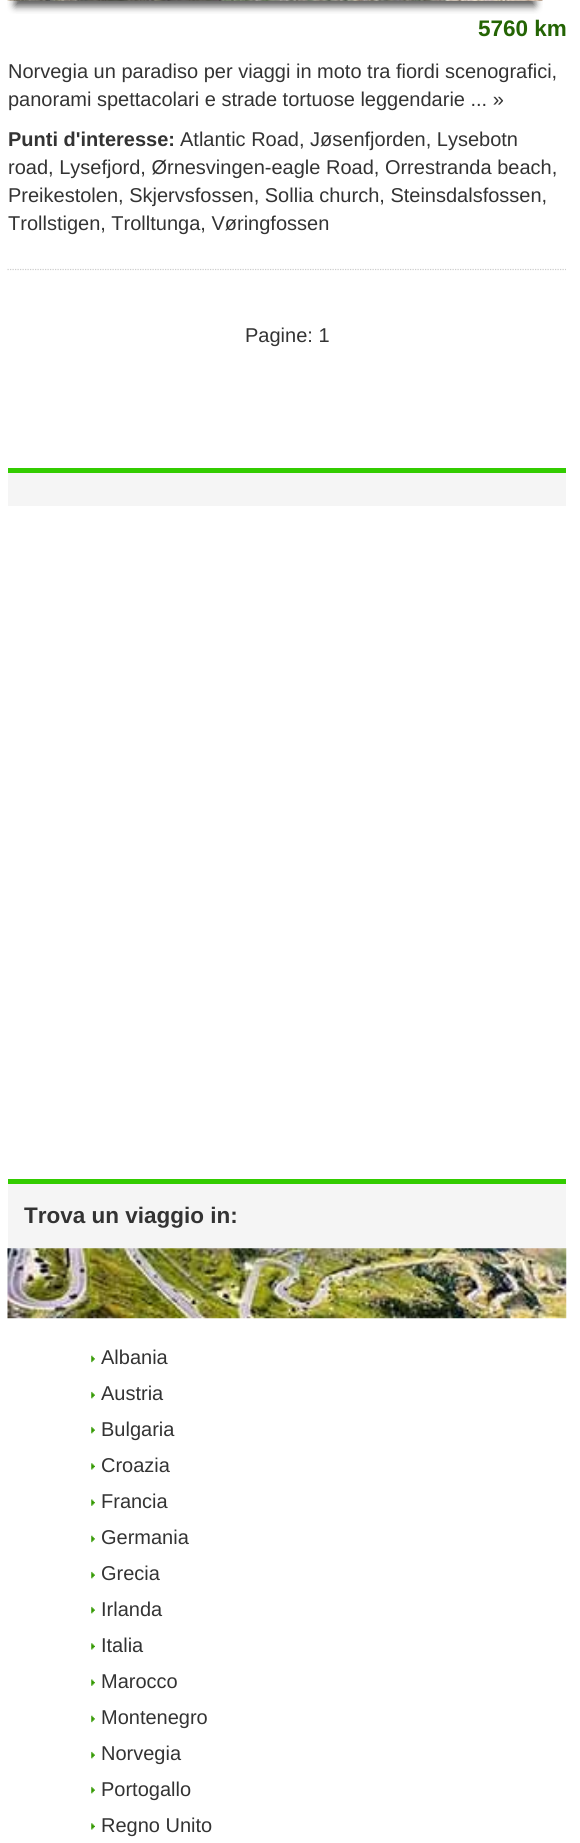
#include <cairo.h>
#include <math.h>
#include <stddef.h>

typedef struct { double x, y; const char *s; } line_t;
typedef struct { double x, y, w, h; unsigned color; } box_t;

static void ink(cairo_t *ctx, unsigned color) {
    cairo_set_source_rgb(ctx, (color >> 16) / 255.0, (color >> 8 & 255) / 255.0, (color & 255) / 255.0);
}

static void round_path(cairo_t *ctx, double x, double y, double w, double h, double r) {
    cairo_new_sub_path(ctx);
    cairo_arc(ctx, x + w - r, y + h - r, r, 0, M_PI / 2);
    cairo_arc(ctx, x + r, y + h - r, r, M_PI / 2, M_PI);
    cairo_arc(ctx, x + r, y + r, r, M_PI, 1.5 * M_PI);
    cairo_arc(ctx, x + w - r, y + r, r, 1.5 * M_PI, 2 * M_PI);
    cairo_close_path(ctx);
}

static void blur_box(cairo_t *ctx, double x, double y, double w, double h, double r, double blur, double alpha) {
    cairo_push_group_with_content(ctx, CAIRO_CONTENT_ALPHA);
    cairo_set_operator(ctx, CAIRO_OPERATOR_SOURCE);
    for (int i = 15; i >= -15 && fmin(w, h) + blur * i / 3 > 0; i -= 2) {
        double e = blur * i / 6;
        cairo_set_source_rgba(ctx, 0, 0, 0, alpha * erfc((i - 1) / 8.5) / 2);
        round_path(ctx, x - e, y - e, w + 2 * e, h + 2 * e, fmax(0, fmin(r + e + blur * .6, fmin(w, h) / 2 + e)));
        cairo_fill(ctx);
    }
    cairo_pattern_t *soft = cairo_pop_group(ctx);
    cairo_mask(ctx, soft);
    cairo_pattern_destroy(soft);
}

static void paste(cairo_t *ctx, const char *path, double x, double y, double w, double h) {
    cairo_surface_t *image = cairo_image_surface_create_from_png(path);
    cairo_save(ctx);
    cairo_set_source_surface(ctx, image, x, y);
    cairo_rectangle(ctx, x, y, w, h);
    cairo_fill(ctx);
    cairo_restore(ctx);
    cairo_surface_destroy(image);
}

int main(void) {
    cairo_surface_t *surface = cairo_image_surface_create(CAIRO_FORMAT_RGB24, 580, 1843);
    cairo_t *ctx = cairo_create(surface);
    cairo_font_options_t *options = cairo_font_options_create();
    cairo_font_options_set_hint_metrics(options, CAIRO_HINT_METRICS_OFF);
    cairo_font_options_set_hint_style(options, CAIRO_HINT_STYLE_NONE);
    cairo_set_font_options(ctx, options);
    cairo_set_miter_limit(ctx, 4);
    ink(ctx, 0xFFFFFF);
    cairo_paint(ctx);
    cairo_new_path(ctx);
    cairo_move_to(ctx, 7.5, 269.5);
    cairo_line_to(ctx, 566, 269.5);
    ink(ctx, 0xCCCCCC);
    cairo_set_line_width(ctx, 1.2);
    cairo_set_dash(ctx, (double[]){1.25, 1.25}, 2, 0);
    cairo_stroke(ctx);
    cairo_save(ctx);
    cairo_rectangle(ctx, 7, 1, 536, 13);
    cairo_clip(ctx);
    ink(ctx, 0x555555);
    blur_box(ctx, 15, -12, 520, 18, 0, 4, 1);
    cairo_restore(ctx);
    paste(ctx, "media/1.png", 7, 0, 536, 1);
    cairo_select_font_face(ctx, "Liberation Sans", CAIRO_FONT_SLANT_NORMAL, CAIRO_FONT_WEIGHT_BOLD);
    cairo_set_font_size(ctx, 22.5);
    ink(ctx, 0x246404);
    cairo_move_to(ctx, 478, 36);
    cairo_show_text(ctx, "5760 km");
    cairo_select_font_face(ctx, "Liberation Sans", CAIRO_FONT_SLANT_NORMAL, CAIRO_FONT_WEIGHT_NORMAL);
    cairo_set_font_size(ctx, 20);
    ink(ctx, 0x333333);
    cairo_move_to(ctx, 8, 78);
    cairo_show_text(ctx, "Norvegia un paradiso per viaggi in moto tra fiordi scenografici,");
    cairo_move_to(ctx, 8, 106);
    cairo_show_text(ctx, "panorami spettacolari e strade tortuose leggendarie ... »");
    cairo_select_font_face(ctx, "Liberation Sans", CAIRO_FONT_SLANT_NORMAL, CAIRO_FONT_WEIGHT_BOLD);
    cairo_move_to(ctx, 8, 146);
    cairo_show_text(ctx, "Punti d'interesse:");
    cairo_select_font_face(ctx, "Liberation Sans", CAIRO_FONT_SLANT_NORMAL, CAIRO_FONT_WEIGHT_NORMAL);
    {
        static const line_t items[] = {
            {180, 146, "Atlantic Road, Jøsenfjorden, Lysebotn"},
            {8, 174, "road, Lysefjord, Ørnesvingen-eagle Road, Orrestranda beach,"},
            {8, 202, "Preikestolen, Skjervsfossen, Sollia church, Steinsdalsfossen,"},
            {8, 230, "Trollstigen, Trolltunga, Vøringfossen"},
            {245, 342, "Pagine: 1"},
        };
        for (size_t i = 0; i < sizeof items / sizeof *items; i++) {
            cairo_move_to(ctx, items[i].x, items[i].y);
            cairo_show_text(ctx, items[i].s);
        }
    }
    {
        static const box_t items[] = {
            {8, 473, 558, 33, 0xF5F5F5},
            {8, 468, 558, 5, 0x33CC00},
            {8, 1184, 558, 65, 0xF5F5F5},
            {8, 1179, 558, 5, 0x33CC00},
        };
        for (size_t i = 0; i < sizeof items / sizeof *items; i++) {
            ink(ctx, items[i].color);
            cairo_rectangle(ctx, items[i].x, items[i].y, items[i].w, items[i].h);
            cairo_fill(ctx);
        }
    }
    cairo_select_font_face(ctx, "Liberation Sans", CAIRO_FONT_SLANT_NORMAL, CAIRO_FONT_WEIGHT_BOLD);
    cairo_set_font_size(ctx, 22.5);
    ink(ctx, 0x333333);
    cairo_move_to(ctx, 24, 1223);
    cairo_show_text(ctx, "Trova un viaggio in:");
    paste(ctx, "media/2.png", 7, 1248, 560, 71);
    paste(ctx, "media/3.png", 91, 1355, 4, 8);
    cairo_select_font_face(ctx, "Liberation Sans", CAIRO_FONT_SLANT_NORMAL, CAIRO_FONT_WEIGHT_NORMAL);
    cairo_set_font_size(ctx, 20);
    cairo_move_to(ctx, 101, 1364);
    cairo_show_text(ctx, "Albania");
    paste(ctx, "media/4.png", 91, 1391, 4, 8);
    cairo_move_to(ctx, 101, 1400);
    cairo_show_text(ctx, "Austria");
    paste(ctx, "media/4.png", 91, 1426, 4, 8);
    cairo_move_to(ctx, 101, 1436);
    cairo_show_text(ctx, "Bulgaria");
    paste(ctx, "media/5.png", 91, 1463, 4, 7);
    cairo_move_to(ctx, 101, 1472);
    cairo_show_text(ctx, "Croazia");
    paste(ctx, "media/6.png", 91, 1499, 4, 7);
    cairo_move_to(ctx, 101, 1508);
    cairo_show_text(ctx, "Francia");
    paste(ctx, "media/3.png", 91, 1535, 4, 8);
    cairo_move_to(ctx, 101, 1544);
    cairo_show_text(ctx, "Germania");
    paste(ctx, "media/4.png", 91, 1571, 4, 8);
    cairo_move_to(ctx, 101, 1580);
    cairo_show_text(ctx, "Grecia");
    paste(ctx, "media/4.png", 91, 1606, 4, 8);
    cairo_move_to(ctx, 101, 1616);
    cairo_show_text(ctx, "Irlanda");
    paste(ctx, "media/5.png", 91, 1643, 4, 7);
    cairo_move_to(ctx, 101, 1652);
    cairo_show_text(ctx, "Italia");
    paste(ctx, "media/6.png", 91, 1679, 4, 7);
    cairo_move_to(ctx, 101, 1688);
    cairo_show_text(ctx, "Marocco");
    paste(ctx, "media/3.png", 91, 1715, 4, 8);
    cairo_move_to(ctx, 101, 1724);
    cairo_show_text(ctx, "Montenegro");
    paste(ctx, "media/4.png", 91, 1751, 4, 8);
    cairo_move_to(ctx, 101, 1760);
    cairo_show_text(ctx, "Norvegia");
    paste(ctx, "media/4.png", 91, 1786, 4, 8);
    cairo_move_to(ctx, 101, 1796);
    cairo_show_text(ctx, "Portogallo");
    paste(ctx, "media/5.png", 91, 1823, 4, 7);
    cairo_move_to(ctx, 101, 1832);
    cairo_show_text(ctx, "Regno Unito");
    cairo_surface_write_to_png(surface, "image.png");
    cairo_font_options_destroy(options);
    cairo_destroy(ctx);
    cairo_surface_destroy(surface);
    return 0;
}
